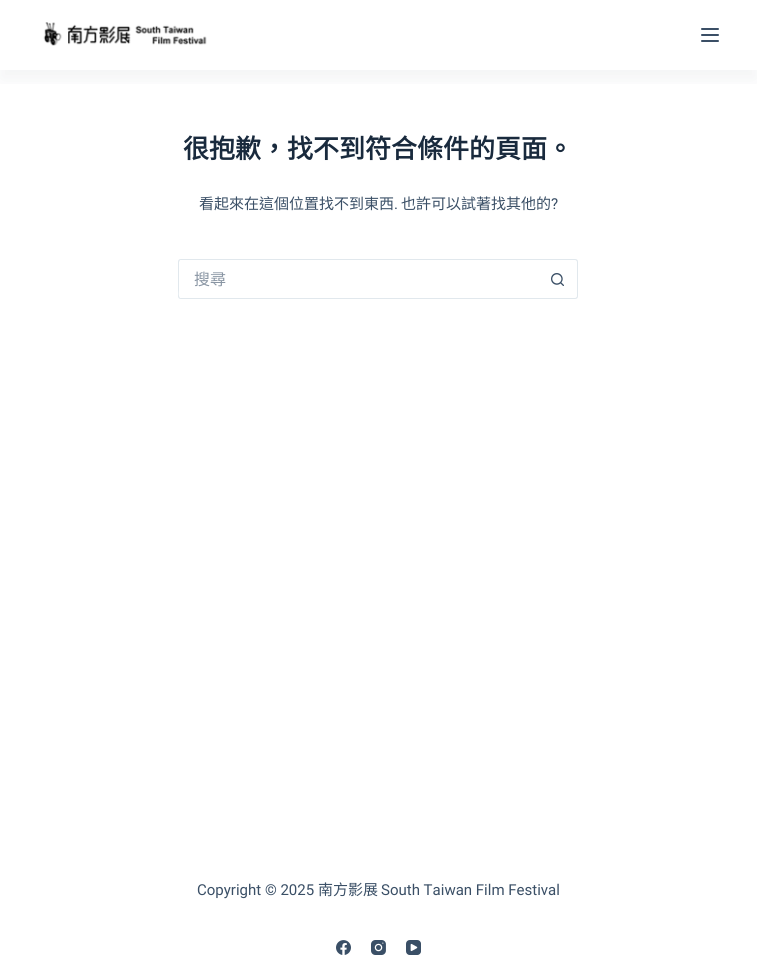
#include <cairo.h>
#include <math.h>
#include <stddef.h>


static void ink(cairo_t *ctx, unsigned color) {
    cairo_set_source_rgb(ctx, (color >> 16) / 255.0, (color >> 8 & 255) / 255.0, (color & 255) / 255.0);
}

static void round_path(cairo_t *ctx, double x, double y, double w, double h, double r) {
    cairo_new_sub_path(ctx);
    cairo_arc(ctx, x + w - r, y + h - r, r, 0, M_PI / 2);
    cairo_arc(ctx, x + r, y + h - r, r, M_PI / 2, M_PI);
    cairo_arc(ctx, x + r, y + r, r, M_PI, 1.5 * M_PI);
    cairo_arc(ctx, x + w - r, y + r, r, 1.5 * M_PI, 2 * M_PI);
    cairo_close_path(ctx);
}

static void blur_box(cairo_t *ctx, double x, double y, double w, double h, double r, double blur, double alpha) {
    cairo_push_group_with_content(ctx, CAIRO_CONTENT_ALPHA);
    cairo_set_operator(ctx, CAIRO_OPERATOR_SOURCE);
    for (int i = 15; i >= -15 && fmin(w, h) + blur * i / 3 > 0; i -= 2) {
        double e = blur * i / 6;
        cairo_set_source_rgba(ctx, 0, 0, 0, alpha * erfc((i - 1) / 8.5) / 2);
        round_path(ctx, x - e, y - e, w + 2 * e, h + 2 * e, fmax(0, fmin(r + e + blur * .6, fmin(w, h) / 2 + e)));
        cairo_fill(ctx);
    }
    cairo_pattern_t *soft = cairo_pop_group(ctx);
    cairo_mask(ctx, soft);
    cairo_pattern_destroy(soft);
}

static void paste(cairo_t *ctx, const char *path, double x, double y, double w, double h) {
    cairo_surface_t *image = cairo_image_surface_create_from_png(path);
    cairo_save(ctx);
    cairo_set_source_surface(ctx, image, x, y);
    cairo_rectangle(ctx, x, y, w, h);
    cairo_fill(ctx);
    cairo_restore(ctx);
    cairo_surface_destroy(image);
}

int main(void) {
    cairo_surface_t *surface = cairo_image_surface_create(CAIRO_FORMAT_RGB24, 757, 980);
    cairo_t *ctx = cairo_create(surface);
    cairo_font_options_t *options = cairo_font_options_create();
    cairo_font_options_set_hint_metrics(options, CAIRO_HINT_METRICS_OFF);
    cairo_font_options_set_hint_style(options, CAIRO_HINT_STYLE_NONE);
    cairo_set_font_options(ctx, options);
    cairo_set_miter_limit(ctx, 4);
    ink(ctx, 0xFFFFFF);
    cairo_paint(ctx);
    cairo_save(ctx);
    cairo_rectangle(ctx, 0, 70, 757, 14);
    cairo_clip(ctx);
    ink(ctx, 0x2B3D50);
    blur_box(ctx, 0, 10, 757, 70, 0, 10, 0.06);
    cairo_restore(ctx);
    paste(ctx, "media/1.png", 43, 22, 164, 24);
    ink(ctx, 0x3A4F66);
    round_path(ctx, 701, 28, 18, 2, 1);
    cairo_fill(ctx);
    round_path(ctx, 701, 34, 18, 2, 1);
    cairo_fill(ctx);
    round_path(ctx, 701, 40, 18, 2, 1);
    cairo_fill(ctx);
    cairo_select_font_face(ctx, "Noto Sans CJK TC", CAIRO_FONT_SLANT_NORMAL, CAIRO_FONT_WEIGHT_BOLD);
    cairo_set_font_size(ctx, 26);
    ink(ctx, 0x192A3D);
    cairo_move_to(ctx, 183, 158);
    cairo_show_text(ctx, "很抱歉，找不到符合條件的頁面。");
    cairo_select_font_face(ctx, "Noto Sans CJK TC", CAIRO_FONT_SLANT_NORMAL, CAIRO_FONT_WEIGHT_NORMAL);
    cairo_set_font_size(ctx, 15);
    ink(ctx, 0x3A4F66);
    cairo_move_to(ctx, 199, 209);
    cairo_show_text(ctx, "看起來在這個位置找不到東西");
    cairo_select_font_face(ctx, "Roboto", CAIRO_FONT_SLANT_NORMAL, CAIRO_FONT_WEIGHT_NORMAL);
    cairo_move_to(ctx, 394, 209);
    cairo_show_text(ctx, ".");
    cairo_select_font_face(ctx, "Noto Sans CJK TC", CAIRO_FONT_SLANT_NORMAL, CAIRO_FONT_WEIGHT_NORMAL);
    cairo_move_to(ctx, 401, 209);
    cairo_show_text(ctx, "也許可以試著找其他的");
    cairo_select_font_face(ctx, "Roboto", CAIRO_FONT_SLANT_NORMAL, CAIRO_FONT_WEIGHT_NORMAL);
    cairo_move_to(ctx, 551, 209);
    cairo_show_text(ctx, "?");
    ink(ctx, 0xE1E8ED);
    cairo_set_fill_rule(ctx, CAIRO_FILL_RULE_EVEN_ODD);
    cairo_new_path(ctx);
    cairo_move_to(ctx, 181, 259);
    cairo_line_to(ctx, 538, 259);
    cairo_line_to(ctx, 538, 299);
    cairo_line_to(ctx, 181, 299);
    cairo_curve_to(ctx, 179, 299, 178, 298, 178, 296);
    cairo_line_to(ctx, 178, 262);
    cairo_curve_to(ctx, 178, 260, 179, 259, 181, 259);
    cairo_close_path(ctx);
    cairo_move_to(ctx, 181, 260);
    cairo_line_to(ctx, 538, 260);
    cairo_line_to(ctx, 538, 298);
    cairo_line_to(ctx, 180, 298);
    cairo_curve_to(ctx, 178, 296, 179, 291, 179, 290);
    cairo_line_to(ctx, 179, 262);
    cairo_line_to(ctx, 180, 260);
    cairo_close_path(ctx);
    cairo_fill(ctx);
    cairo_select_font_face(ctx, "Noto Sans CJK TC", CAIRO_FONT_SLANT_NORMAL, CAIRO_FONT_WEIGHT_NORMAL);
    cairo_set_font_size(ctx, 16);
    ink(ctx, 0x8995A3);
    cairo_move_to(ctx, 194, 285);
    cairo_show_text(ctx, "搜尋");
    ink(ctx, 0xE1E8ED);
    cairo_new_path(ctx);
    cairo_move_to(ctx, 538, 259);
    cairo_line_to(ctx, 575, 259);
    cairo_curve_to(ctx, 577, 259, 578, 260, 578, 262);
    cairo_line_to(ctx, 578, 296);
    cairo_curve_to(ctx, 578, 298, 577, 299, 575, 299);
    cairo_line_to(ctx, 538, 299);
    cairo_close_path(ctx);
    cairo_move_to(ctx, 538, 260);
    cairo_line_to(ctx, 575, 260);
    cairo_curve_to(ctx, 576, 260, 577, 261, 577, 262);
    cairo_line_to(ctx, 577, 296);
    cairo_curve_to(ctx, 577, 297, 576, 298, 575, 298);
    cairo_line_to(ctx, 538, 298);
    cairo_close_path(ctx);
    cairo_fill(ctx);
    paste(ctx, "media/2.png", 551, 273, 13, 13);
    cairo_select_font_face(ctx, "Roboto", CAIRO_FONT_SLANT_NORMAL, CAIRO_FONT_WEIGHT_NORMAL);
    cairo_set_font_size(ctx, 15);
    ink(ctx, 0x3A4F66);
    cairo_move_to(ctx, 197, 895);
    cairo_show_text(ctx, "Copyright © 2025");
    cairo_select_font_face(ctx, "Noto Sans CJK TC", CAIRO_FONT_SLANT_NORMAL, CAIRO_FONT_WEIGHT_NORMAL);
    cairo_move_to(ctx, 318, 895);
    cairo_show_text(ctx, "南方影展");
    cairo_select_font_face(ctx, "Roboto", CAIRO_FONT_SLANT_NORMAL, CAIRO_FONT_WEIGHT_NORMAL);
    cairo_move_to(ctx, 381, 895);
    cairo_show_text(ctx, "South Taiwan Film Festival");
    paste(ctx, "media/3.png", 336, 940, 15, 15);
    paste(ctx, "media/4.png", 371, 940, 15, 15);
    paste(ctx, "media/5.png", 406, 940, 15, 15);
    cairo_surface_write_to_png(surface, "image.png");
    cairo_font_options_destroy(options);
    cairo_destroy(ctx);
    cairo_surface_destroy(surface);
    return 0;
}
